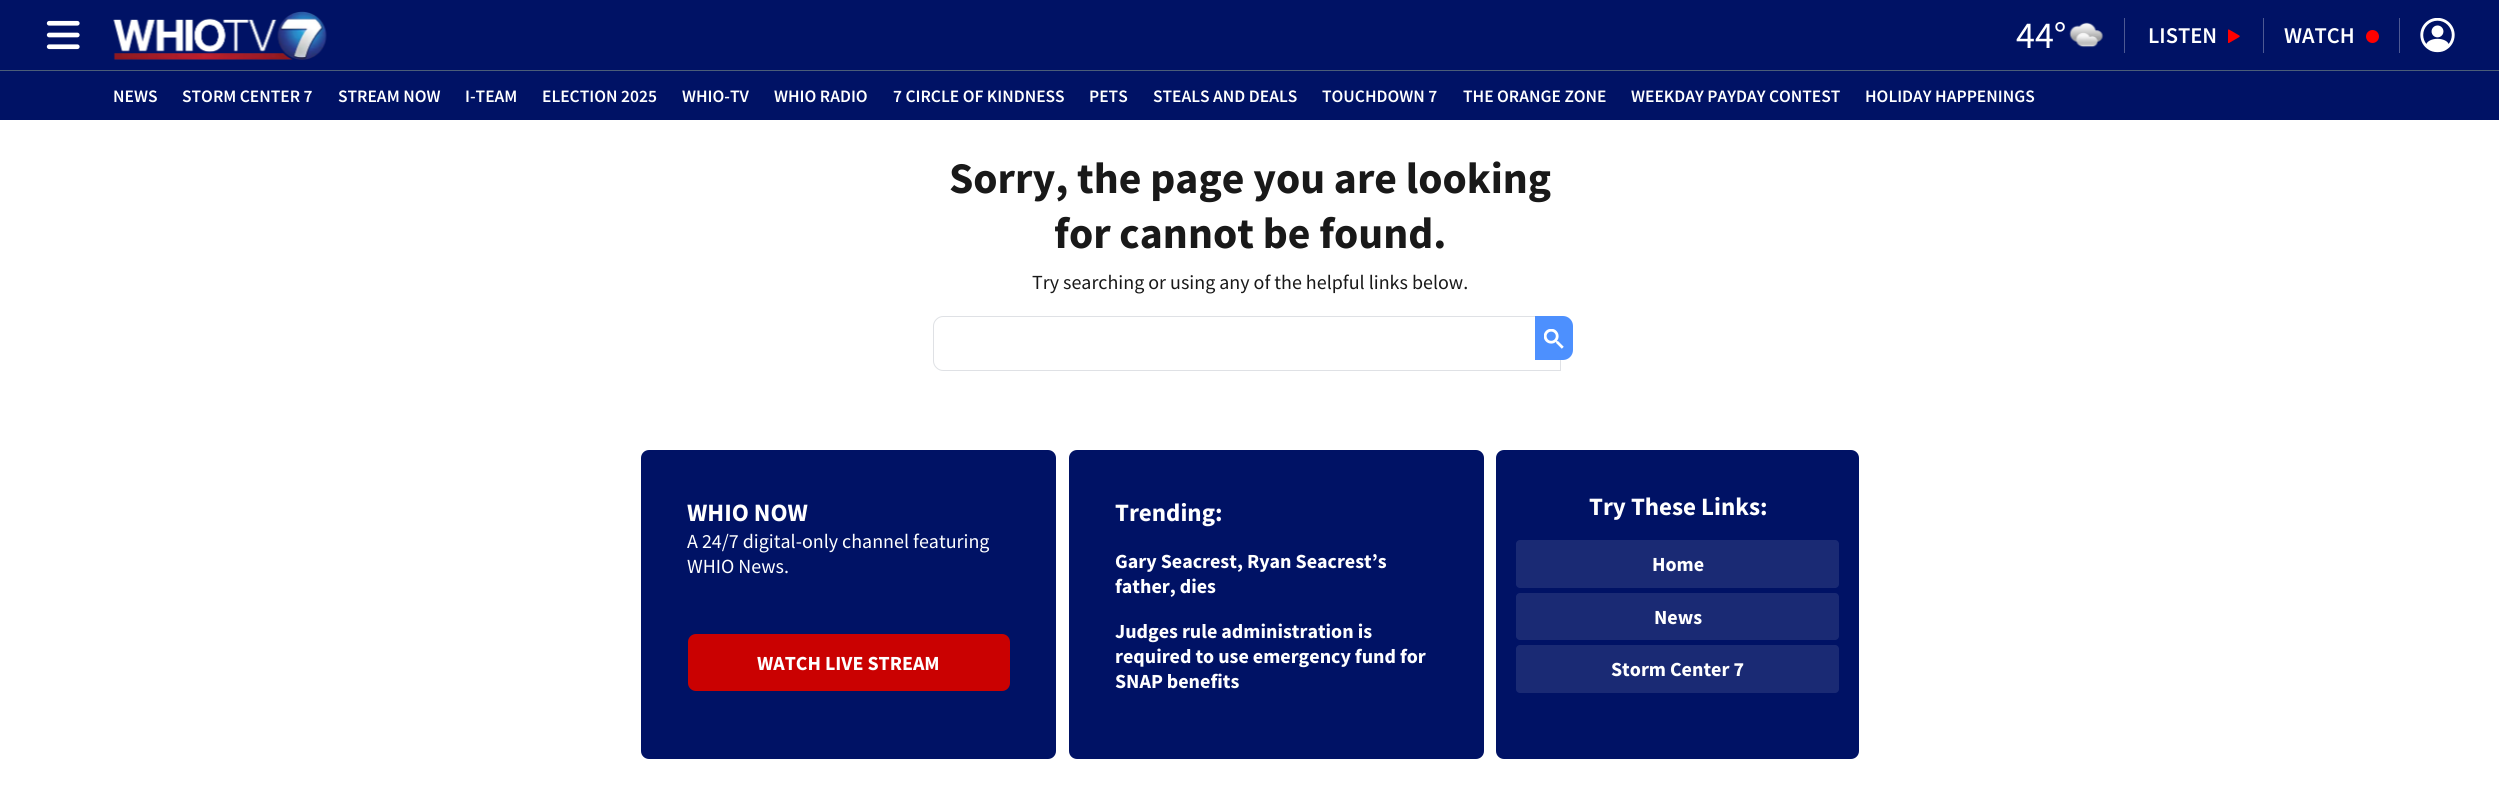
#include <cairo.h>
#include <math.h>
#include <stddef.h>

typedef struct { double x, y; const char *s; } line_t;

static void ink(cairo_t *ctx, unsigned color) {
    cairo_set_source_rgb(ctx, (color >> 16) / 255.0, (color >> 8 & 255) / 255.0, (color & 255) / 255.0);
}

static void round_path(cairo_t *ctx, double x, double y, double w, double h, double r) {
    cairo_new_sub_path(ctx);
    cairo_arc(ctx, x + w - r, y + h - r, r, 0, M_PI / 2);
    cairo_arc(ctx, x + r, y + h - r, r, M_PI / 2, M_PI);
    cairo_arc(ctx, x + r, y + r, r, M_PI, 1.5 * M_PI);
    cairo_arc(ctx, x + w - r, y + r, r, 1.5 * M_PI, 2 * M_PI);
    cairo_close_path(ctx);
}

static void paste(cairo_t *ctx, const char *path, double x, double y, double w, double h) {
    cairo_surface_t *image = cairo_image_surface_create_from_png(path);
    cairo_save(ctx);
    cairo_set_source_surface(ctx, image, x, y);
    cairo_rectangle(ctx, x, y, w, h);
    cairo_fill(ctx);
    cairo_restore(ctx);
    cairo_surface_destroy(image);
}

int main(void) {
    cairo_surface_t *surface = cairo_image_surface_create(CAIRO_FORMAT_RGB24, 2499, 804);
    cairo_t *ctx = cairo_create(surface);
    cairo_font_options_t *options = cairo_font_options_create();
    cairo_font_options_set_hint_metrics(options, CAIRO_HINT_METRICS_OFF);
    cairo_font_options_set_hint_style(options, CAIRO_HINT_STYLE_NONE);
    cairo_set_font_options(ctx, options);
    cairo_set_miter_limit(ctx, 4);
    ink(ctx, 0xFFFFFF);
    cairo_paint(ctx);
    ink(ctx, 0x001265);
    cairo_rectangle(ctx, 0, 0, 2499, 70);
    cairo_fill(ctx);
    paste(ctx, "media/1.png", 46, 20, 34, 30);
    paste(ctx, "media/2.png", 113, 11, 214, 49);
    cairo_select_font_face(ctx, "Source Sans Pro", CAIRO_FONT_SLANT_NORMAL, CAIRO_FONT_WEIGHT_NORMAL);
    cairo_set_font_size(ctx, 38);
    ink(ctx, 0xFFFFFF);
    cairo_move_to(ctx, 2016, 48);
    cairo_show_text(ctx, "44°");
    paste(ctx, "media/3.png", 2069, 22, 35, 26);
    ink(ctx, 0x4D5993);
    cairo_rectangle(ctx, 2124, 18, 1, 35);
    cairo_fill(ctx);
    cairo_select_font_face(ctx, "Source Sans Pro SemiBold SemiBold", CAIRO_FONT_SLANT_NORMAL, CAIRO_FONT_WEIGHT_NORMAL);
    cairo_set_font_size(ctx, 22.5);
    ink(ctx, 0xFFFFFF);
    cairo_move_to(ctx, 2148, 43);
    cairo_show_text(ctx, "LISTEN");
    paste(ctx, "media/4.png", 2228, 29, 12, 14);
    ink(ctx, 0x4D5993);
    cairo_rectangle(ctx, 2263, 18, 1, 35);
    cairo_fill(ctx);
    ink(ctx, 0xFFFFFF);
    cairo_move_to(ctx, 2284, 43);
    cairo_show_text(ctx, "WATCH");
    ink(ctx, 0xFF0000);
    cairo_new_path(ctx);
    cairo_arc(ctx, 2372.5, 36.5, 6.5, 0, 2 * M_PI);
    cairo_fill(ctx);
    ink(ctx, 0x4D5993);
    cairo_rectangle(ctx, 2399, 18, 1, 35);
    cairo_fill(ctx);
    paste(ctx, "media/5.png", 2420, 18, 35, 35);
    ink(ctx, 0x001265);
    cairo_rectangle(ctx, 0, 71, 2499, 49);
    cairo_fill(ctx);
    ink(ctx, 0x4B5D78);
    cairo_rectangle(ctx, 0, 70, 2499, 1);
    cairo_fill(ctx);
    cairo_set_font_size(ctx, 17.5);
    ink(ctx, 0xFFFFFF);
    {
        static const line_t items[] = {
            {113, 102, "NEWS"},
            {182, 102, "STORM CENTER 7"},
            {338, 102, "STREAM NOW"},
            {465, 102, "I-TEAM"},
            {542, 102, "ELECTION 2025"},
            {682, 102, "WHIO-TV"},
            {774, 102, "WHIO RADIO"},
            {893, 102, "7 CIRCLE OF KINDNESS"},
            {1089, 102, "PETS"},
            {1153, 102, "STEALS AND DEALS"},
            {1322, 102, "TOUCHDOWN 7"},
            {1463, 102, "THE ORANGE ZONE"},
            {1631, 102, "WEEKDAY PAYDAY CONTEST"},
            {1865, 102, "HOLIDAY HAPPENINGS"},
        };
        for (size_t i = 0; i < sizeof items / sizeof *items; i++) {
            cairo_move_to(ctx, items[i].x, items[i].y);
            cairo_show_text(ctx, items[i].s);
        }
    }
    cairo_select_font_face(ctx, "Source Sans Pro", CAIRO_FONT_SLANT_NORMAL, CAIRO_FONT_WEIGHT_BOLD);
    cairo_set_font_size(ctx, 43.75);
    ink(ctx, 0x191919);
    cairo_move_to(ctx, 949, 193);
    cairo_show_text(ctx, "Sorry, the page you are looking");
    cairo_move_to(ctx, 1054, 248);
    cairo_show_text(ctx, "for cannot be found.");
    cairo_select_font_face(ctx, "Source Sans Pro", CAIRO_FONT_SLANT_NORMAL, CAIRO_FONT_WEIGHT_NORMAL);
    cairo_set_font_size(ctx, 20);
    cairo_move_to(ctx, 1032, 289);
    cairo_show_text(ctx, "Try searching or using any of the helpful links below.");
    cairo_new_path(ctx);
    cairo_move_to(ctx, 943, 316.5);
    cairo_line_to(ctx, 1560.5, 316.5);
    cairo_line_to(ctx, 1560.5, 370.5);
    cairo_line_to(ctx, 943, 370.5);
    cairo_curve_to(ctx, 938, 370.5, 933.5, 366, 933.5, 361);
    cairo_line_to(ctx, 933.5, 326);
    cairo_curve_to(ctx, 933.5, 321, 938, 316.5, 943, 316.5);
    cairo_close_path(ctx);
    ink(ctx, 0xDFE1E5);
    cairo_set_line_width(ctx, 1);
    cairo_stroke(ctx);
    ink(ctx, 0x4D90FE);
    cairo_new_path(ctx);
    cairo_move_to(ctx, 1535, 316);
    cairo_line_to(ctx, 1563, 316);
    cairo_curve_to(ctx, 1568.5, 316, 1573, 320.5, 1573, 326);
    cairo_line_to(ctx, 1573, 350);
    cairo_curve_to(ctx, 1573, 355.5, 1568.5, 360, 1563, 360);
    cairo_line_to(ctx, 1535, 360);
    cairo_close_path(ctx);
    cairo_fill(ctx);
    paste(ctx, "media/6.png", 1544, 329, 20, 20);
    ink(ctx, 0x001265);
    round_path(ctx, 641, 450, 415, 309, 8);
    cairo_fill(ctx);
    cairo_select_font_face(ctx, "Source Sans Pro", CAIRO_FONT_SLANT_NORMAL, CAIRO_FONT_WEIGHT_BOLD);
    cairo_set_font_size(ctx, 25);
    ink(ctx, 0xFFFFFF);
    cairo_move_to(ctx, 687, 521);
    cairo_show_text(ctx, "WHIO NOW");
    cairo_select_font_face(ctx, "Source Sans Pro", CAIRO_FONT_SLANT_NORMAL, CAIRO_FONT_WEIGHT_NORMAL);
    cairo_set_font_size(ctx, 20);
    cairo_move_to(ctx, 687, 548);
    cairo_show_text(ctx, "A 24/7 digital-only channel featuring");
    cairo_move_to(ctx, 687, 573);
    cairo_show_text(ctx, "WHIO News.");
    ink(ctx, 0xCA0101);
    round_path(ctx, 688, 634, 322, 57, 8);
    cairo_fill(ctx);
    cairo_select_font_face(ctx, "Source Sans Pro", CAIRO_FONT_SLANT_NORMAL, CAIRO_FONT_WEIGHT_BOLD);
    ink(ctx, 0xFFFFFF);
    cairo_move_to(ctx, 757, 670);
    cairo_show_text(ctx, "WATCH LIVE STREAM");
    ink(ctx, 0x001265);
    round_path(ctx, 1069, 450, 415, 309, 8);
    cairo_fill(ctx);
    cairo_set_font_size(ctx, 25);
    ink(ctx, 0xFFFFFF);
    cairo_move_to(ctx, 1115, 521);
    cairo_show_text(ctx, "Trending:");
    cairo_set_font_size(ctx, 20);
    {
        static const line_t items[] = {
            {1115, 568, "Gary Seacrest, Ryan Seacrest’s"},
            {1115, 593, "father, dies"},
            {1115, 638, "Judges rule administration is"},
            {1115, 663, "required to use emergency fund for"},
            {1115, 688, "SNAP benefits"},
        };
        for (size_t i = 0; i < sizeof items / sizeof *items; i++) {
            cairo_move_to(ctx, items[i].x, items[i].y);
            cairo_show_text(ctx, items[i].s);
        }
    }
    ink(ctx, 0x001265);
    round_path(ctx, 1496, 450, 363, 309, 8);
    cairo_fill(ctx);
    cairo_set_font_size(ctx, 25);
    ink(ctx, 0xFFFFFF);
    cairo_move_to(ctx, 1589, 515);
    cairo_show_text(ctx, "Try These Links:");
    ink(ctx, 0x1A2A74);
    round_path(ctx, 1516, 540, 323, 48, 4);
    cairo_fill(ctx);
    cairo_set_font_size(ctx, 20);
    ink(ctx, 0xFFFFFF);
    cairo_move_to(ctx, 1652, 571);
    cairo_show_text(ctx, "Home");
    ink(ctx, 0x1A2A74);
    round_path(ctx, 1516, 593, 323, 47, 4);
    cairo_fill(ctx);
    ink(ctx, 0xFFFFFF);
    cairo_move_to(ctx, 1654, 624);
    cairo_show_text(ctx, "News");
    ink(ctx, 0x1A2A74);
    round_path(ctx, 1516, 645, 323, 48, 4);
    cairo_fill(ctx);
    ink(ctx, 0xFFFFFF);
    cairo_move_to(ctx, 1611, 676);
    cairo_show_text(ctx, "Storm Center 7");
    cairo_surface_write_to_png(surface, "image.png");
    cairo_font_options_destroy(options);
    cairo_destroy(ctx);
    cairo_surface_destroy(surface);
    return 0;
}
